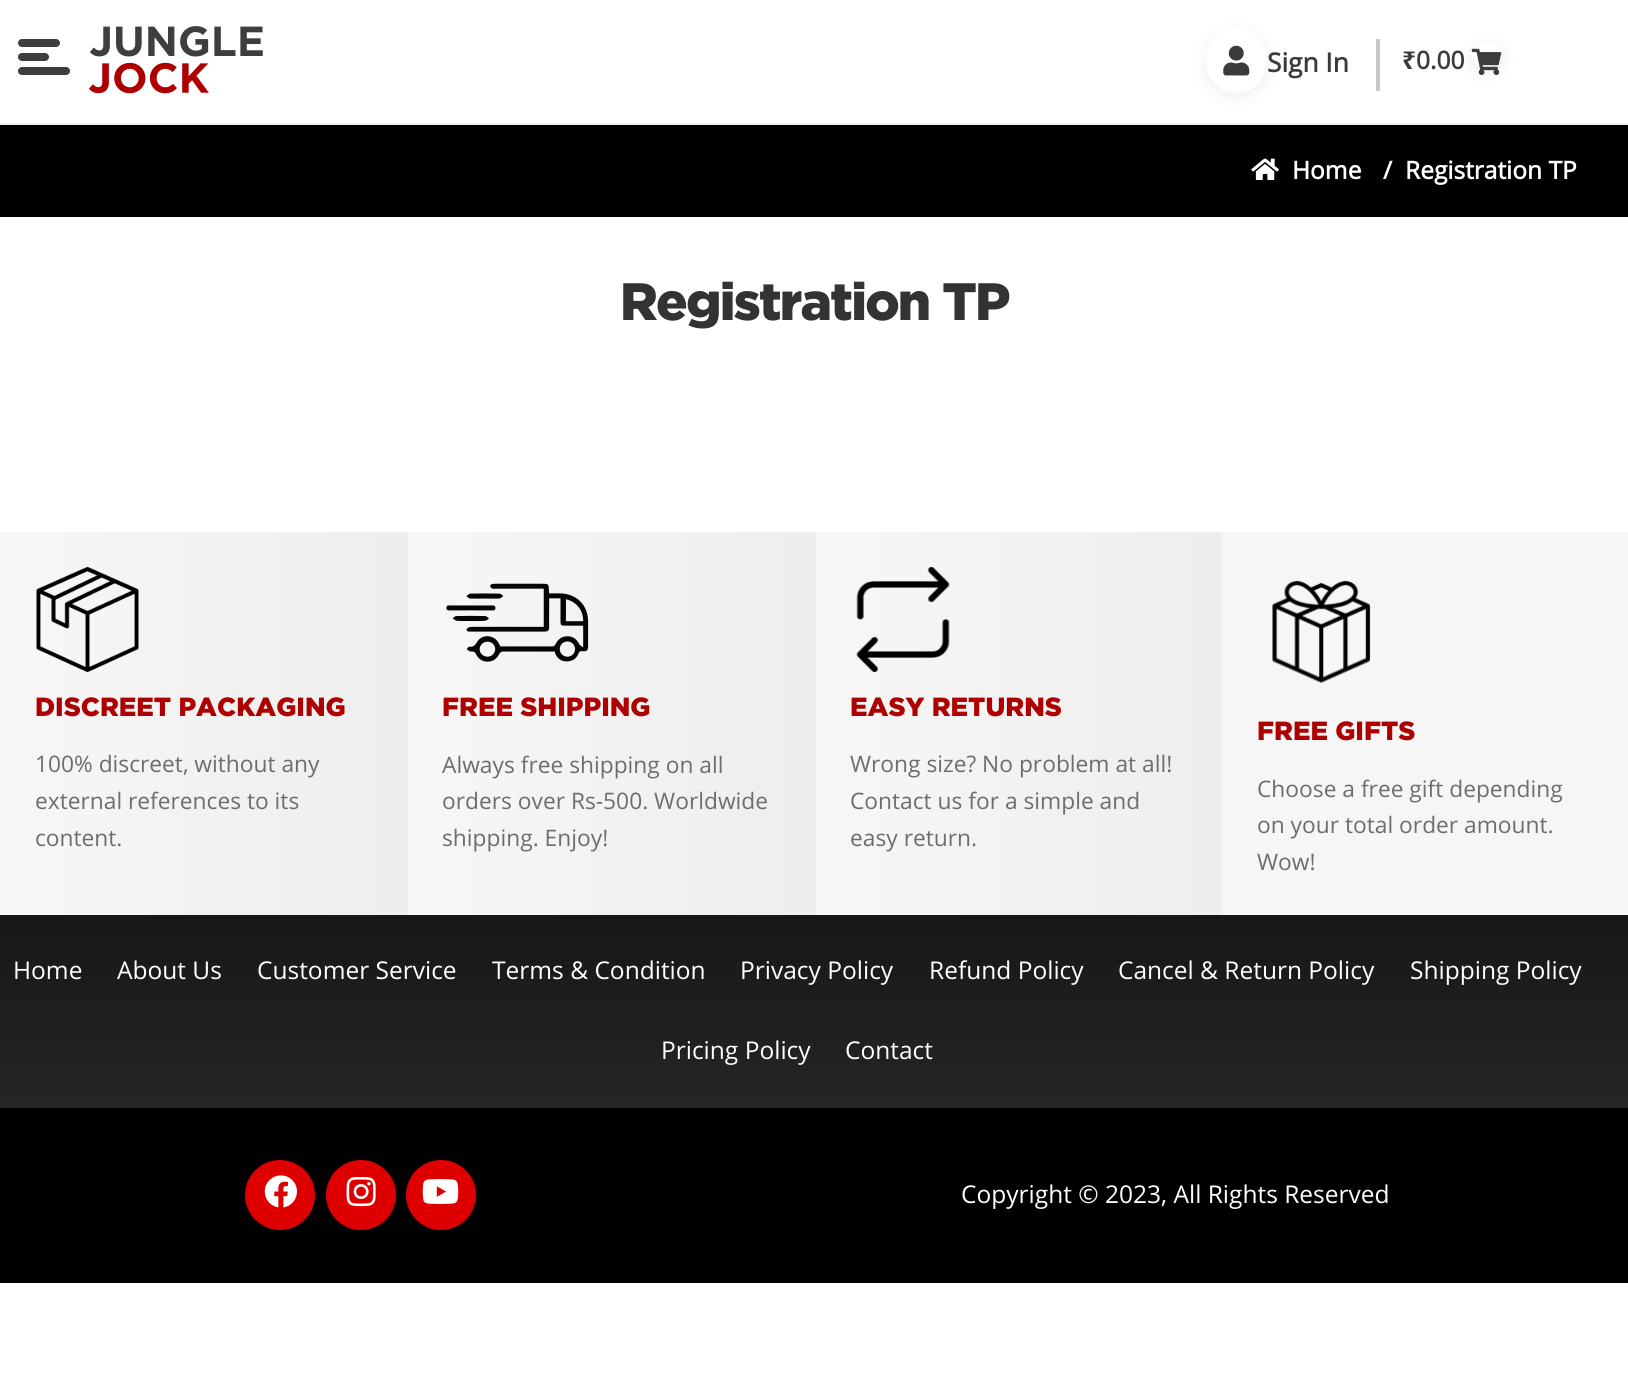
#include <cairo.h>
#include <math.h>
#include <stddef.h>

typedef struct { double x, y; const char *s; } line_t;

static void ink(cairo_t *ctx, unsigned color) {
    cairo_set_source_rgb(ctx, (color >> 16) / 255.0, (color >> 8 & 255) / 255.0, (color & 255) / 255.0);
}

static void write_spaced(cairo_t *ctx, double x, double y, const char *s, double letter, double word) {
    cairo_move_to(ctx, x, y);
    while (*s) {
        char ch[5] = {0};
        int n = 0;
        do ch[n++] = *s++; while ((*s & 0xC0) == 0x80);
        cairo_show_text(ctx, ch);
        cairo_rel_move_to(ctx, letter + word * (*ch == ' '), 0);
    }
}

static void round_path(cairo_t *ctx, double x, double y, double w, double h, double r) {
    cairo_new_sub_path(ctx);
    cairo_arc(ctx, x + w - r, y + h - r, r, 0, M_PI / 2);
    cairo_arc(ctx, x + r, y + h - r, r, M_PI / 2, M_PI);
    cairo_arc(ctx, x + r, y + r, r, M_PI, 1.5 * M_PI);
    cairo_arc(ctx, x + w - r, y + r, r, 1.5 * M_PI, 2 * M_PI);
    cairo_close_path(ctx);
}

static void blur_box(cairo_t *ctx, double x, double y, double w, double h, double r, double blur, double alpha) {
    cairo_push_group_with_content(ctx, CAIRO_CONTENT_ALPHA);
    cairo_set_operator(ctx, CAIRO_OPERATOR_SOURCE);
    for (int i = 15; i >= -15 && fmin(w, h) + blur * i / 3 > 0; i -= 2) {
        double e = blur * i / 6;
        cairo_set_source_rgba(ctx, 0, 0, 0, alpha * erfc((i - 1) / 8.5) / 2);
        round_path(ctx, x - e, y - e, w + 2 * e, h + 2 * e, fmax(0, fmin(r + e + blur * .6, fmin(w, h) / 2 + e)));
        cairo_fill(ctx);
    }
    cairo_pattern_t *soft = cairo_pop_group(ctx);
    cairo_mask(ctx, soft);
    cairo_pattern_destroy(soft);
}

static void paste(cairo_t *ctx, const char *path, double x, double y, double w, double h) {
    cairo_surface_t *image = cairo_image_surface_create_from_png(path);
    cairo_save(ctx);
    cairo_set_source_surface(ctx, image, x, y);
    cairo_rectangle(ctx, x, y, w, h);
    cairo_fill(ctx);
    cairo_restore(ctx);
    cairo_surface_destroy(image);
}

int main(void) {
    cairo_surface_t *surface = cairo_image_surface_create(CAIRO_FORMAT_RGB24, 1628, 1390);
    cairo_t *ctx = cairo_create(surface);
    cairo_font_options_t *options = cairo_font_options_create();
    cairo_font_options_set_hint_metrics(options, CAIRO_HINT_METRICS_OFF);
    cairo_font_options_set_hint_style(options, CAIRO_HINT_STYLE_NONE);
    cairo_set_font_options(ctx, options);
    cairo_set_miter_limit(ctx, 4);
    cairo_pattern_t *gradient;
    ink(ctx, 0xFFFFFF);
    cairo_paint(ctx);
    ink(ctx, 0xF0F0F0);
    cairo_rectangle(ctx, 0, 123, 1628, 2);
    cairo_fill(ctx);
    ink(ctx, 0x3E3E3E);
    round_path(ctx, 18, 67, 52, 8, 4);
    cairo_fill(ctx);
    round_path(ctx, 18, 39, 42, 8, 4);
    cairo_fill(ctx);
    round_path(ctx, 18, 53, 31, 8, 4);
    cairo_fill(ctx);
    paste(ctx, "media/1.png", 88, 26, 175, 68);
    ink(ctx, 0xF0EEEE);
    blur_box(ctx, 1206, 32, 61, 64, 30.5, 7, 1);
    ink(ctx, 0xFFFFFF);
    cairo_new_path(ctx);
    cairo_move_to(ctx, 1236.5, 28);
    cairo_curve_to(ctx, 1253.5, 28, 1267, 42.5, 1267, 60.5);
    cairo_curve_to(ctx, 1267, 78.5, 1253.5, 93, 1236.5, 93);
    cairo_curve_to(ctx, 1219.5, 93, 1206, 78.5, 1206, 60.5);
    cairo_curve_to(ctx, 1206, 42.5, 1219.5, 28, 1236.5, 28);
    cairo_close_path(ctx);
    cairo_fill(ctx);
    paste(ctx, "media/2.png", 1223, 45, 27, 31);
    cairo_select_font_face(ctx, "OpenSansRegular", CAIRO_FONT_SLANT_NORMAL, CAIRO_FONT_WEIGHT_BOLD);
    cairo_set_font_size(ctx, 26.25);
    ink(ctx, 0x3B3B3B);
    cairo_move_to(ctx, 1267, 72);
    cairo_show_text(ctx, "Sign In");
    ink(ctx, 0xC7C7C7);
    cairo_rectangle(ctx, 1376, 39, 4, 52);
    cairo_fill(ctx);
    cairo_select_font_face(ctx, "Noto Sans", CAIRO_FONT_SLANT_NORMAL, CAIRO_FONT_WEIGHT_BOLD);
    cairo_set_font_size(ctx, 24.5);
    ink(ctx, 0x3B3B3B);
    cairo_move_to(ctx, 1402, 69);
    cairo_show_text(ctx, "₹");
    ink(ctx, 0xF0EEEE);
    blur_box(ctx, 1472, 46, 30, 26, 13, 7, 1);
    cairo_select_font_face(ctx, "OpenSansRegular", CAIRO_FONT_SLANT_NORMAL, CAIRO_FONT_WEIGHT_BOLD);
    ink(ctx, 0x3B3B3B);
    cairo_move_to(ctx, 1416, 69);
    cairo_show_text(ctx, "0.00");
    ink(ctx, 0xFFFFFF);
    cairo_new_path(ctx);
    cairo_move_to(ctx, 1486.5, 42);
    cairo_curve_to(ctx, 1495, 42, 1501.5, 48, 1501.5, 55);
    cairo_curve_to(ctx, 1501.5, 62, 1495, 68, 1486.5, 68);
    cairo_curve_to(ctx, 1478, 68, 1471.5, 62, 1471.5, 55);
    cairo_curve_to(ctx, 1471.5, 48, 1478, 42, 1486.5, 42);
    cairo_close_path(ctx);
    cairo_fill(ctx);
    paste(ctx, "media/3.png", 1471, 48, 31, 27);
    ink(ctx, 0x000000);
    cairo_rectangle(ctx, 0, 125, 1628, 92);
    cairo_fill(ctx);
    paste(ctx, "media/4.png", 1251, 158, 28, 22);
    ink(ctx, 0xFFFFFF);
    {
        static const line_t items[] = {
            {1292, 179, "Home"},
            {1383, 179, "/"},
            {1405, 179, "Registration TP"},
        };
        for (size_t i = 0; i < sizeof items / sizeof *items; i++) {
            cairo_move_to(ctx, items[i].x, items[i].y);
            cairo_show_text(ctx, items[i].s);
        }
    }
    cairo_select_font_face(ctx, "Gotham Black", CAIRO_FONT_SLANT_NORMAL, CAIRO_FONT_WEIGHT_NORMAL);
    cairo_set_font_size(ctx, 52.5);
    ink(ctx, 0x333333);
    write_spaced(ctx, 620, 320, "Registration TP", -1.75, 0);
    ink(ctx, 0xF7F6F6);
    cairo_rectangle(ctx, 1222, 532, 406, 383);
    cairo_fill(ctx);
    gradient = cairo_pattern_create_linear(408, 724, 0, 724);
    cairo_pattern_add_color_stop_rgba(gradient, 0, 0.933, 0.933, 0.933, 1);
    cairo_pattern_add_color_stop_rgba(gradient, 1, 0.973, 0.965, 0.965, 1);
    cairo_set_source(ctx, gradient);
    cairo_pattern_destroy(gradient);
    cairo_rectangle(ctx, 0, 532, 408, 383);
    cairo_fill(ctx);
    paste(ctx, "media/5.png", 36, 567, 103, 105);
    cairo_set_font_size(ctx, 26.25);
    ink(ctx, 0xAE0000);
    cairo_move_to(ctx, 35, 716);
    cairo_show_text(ctx, "DISCREET PACKAGING");
    cairo_select_font_face(ctx, "OpenSansRegular", CAIRO_FONT_SLANT_NORMAL, CAIRO_FONT_WEIGHT_NORMAL);
    cairo_set_font_size(ctx, 22.75);
    ink(ctx, 0x6D6D6D);
    {
        static const line_t items[] = {
            {35, 772, "100% discreet, without any"},
            {35, 809, "external references to its"},
            {35, 846, "content."},
        };
        for (size_t i = 0; i < sizeof items / sizeof *items; i++) {
            cairo_move_to(ctx, items[i].x, items[i].y);
            cairo_show_text(ctx, items[i].s);
        }
    }
    gradient = cairo_pattern_create_linear(816, 724, 408, 724);
    cairo_pattern_add_color_stop_rgba(gradient, 0, 0.933, 0.933, 0.933, 1);
    cairo_pattern_add_color_stop_rgba(gradient, 1, 0.973, 0.965, 0.965, 1);
    cairo_set_source(ctx, gradient);
    cairo_pattern_destroy(gradient);
    cairo_rectangle(ctx, 408, 532, 408, 383);
    cairo_fill(ctx);
    paste(ctx, "media/6.png", 446, 583, 143, 79);
    cairo_select_font_face(ctx, "Gotham Black", CAIRO_FONT_SLANT_NORMAL, CAIRO_FONT_WEIGHT_NORMAL);
    cairo_set_font_size(ctx, 26.25);
    ink(ctx, 0xAE0000);
    cairo_move_to(ctx, 442, 716);
    cairo_show_text(ctx, "FREE SHIPPING");
    cairo_select_font_face(ctx, "OpenSansRegular", CAIRO_FONT_SLANT_NORMAL, CAIRO_FONT_WEIGHT_NORMAL);
    cairo_set_font_size(ctx, 22.75);
    ink(ctx, 0x6D6D6D);
    {
        static const line_t items[] = {
            {442, 773, "Always free shipping on all"},
            {442, 809, "orders over Rs-500. Worldwide"},
            {442, 846, "shipping. Enjoy!"},
        };
        for (size_t i = 0; i < sizeof items / sizeof *items; i++) {
            cairo_move_to(ctx, items[i].x, items[i].y);
            cairo_show_text(ctx, items[i].s);
        }
    }
    gradient = cairo_pattern_create_linear(1222, 724, 816, 724);
    cairo_pattern_add_color_stop_rgba(gradient, 0, 0.933, 0.933, 0.933, 1);
    cairo_pattern_add_color_stop_rgba(gradient, 1, 0.973, 0.965, 0.965, 1);
    cairo_set_source(ctx, gradient);
    cairo_pattern_destroy(gradient);
    cairo_rectangle(ctx, 816, 532, 406, 383);
    cairo_fill(ctx);
    paste(ctx, "media/7.png", 856, 567, 94, 105);
    cairo_select_font_face(ctx, "Gotham Black", CAIRO_FONT_SLANT_NORMAL, CAIRO_FONT_WEIGHT_NORMAL);
    cairo_set_font_size(ctx, 26.25);
    ink(ctx, 0xAE0000);
    cairo_move_to(ctx, 850, 716);
    cairo_show_text(ctx, "EASY RETURNS");
    cairo_select_font_face(ctx, "OpenSansRegular", CAIRO_FONT_SLANT_NORMAL, CAIRO_FONT_WEIGHT_NORMAL);
    cairo_set_font_size(ctx, 22.75);
    ink(ctx, 0x6D6D6D);
    {
        static const line_t items[] = {
            {850, 772, "Wrong size? No problem at all!"},
            {850, 809, "Contact us for a simple and"},
            {850, 846, "easy return."},
        };
        for (size_t i = 0; i < sizeof items / sizeof *items; i++) {
            cairo_move_to(ctx, items[i].x, items[i].y);
            cairo_show_text(ctx, items[i].s);
        }
    }
    paste(ctx, "media/8.png", 1272, 580, 99, 103);
    cairo_select_font_face(ctx, "Gotham Black", CAIRO_FONT_SLANT_NORMAL, CAIRO_FONT_WEIGHT_NORMAL);
    cairo_set_font_size(ctx, 26.25);
    ink(ctx, 0xAE0000);
    cairo_move_to(ctx, 1257, 740);
    cairo_show_text(ctx, "FREE GIFTS");
    cairo_select_font_face(ctx, "OpenSansRegular", CAIRO_FONT_SLANT_NORMAL, CAIRO_FONT_WEIGHT_NORMAL);
    cairo_set_font_size(ctx, 22.75);
    ink(ctx, 0x6D6D6D);
    {
        static const line_t items[] = {
            {1257, 797, "Choose a free gift depending"},
            {1257, 833, "on your total order amount."},
            {1257, 870, "Wow!"},
        };
        for (size_t i = 0; i < sizeof items / sizeof *items; i++) {
            cairo_move_to(ctx, items[i].x, items[i].y);
            cairo_show_text(ctx, items[i].s);
        }
    }
    gradient = cairo_pattern_create_linear(815, 915, 815, 1283);
    cairo_pattern_add_color_stop_rgba(gradient, 0, 0.09, 0.09, 0.09, 1);
    cairo_pattern_add_color_stop_rgba(gradient, 1, 0.2, 0.2, 0.2, 1);
    cairo_set_source(ctx, gradient);
    cairo_pattern_destroy(gradient);
    cairo_rectangle(ctx, 0, 915, 1628, 193);
    cairo_fill(ctx);
    cairo_set_font_size(ctx, 24.5);
    ink(ctx, 0xFFFFFF);
    {
        static const line_t items[] = {
            {13, 979, "Home"},
            {117, 979, "About Us"},
            {257, 979, "Customer Service"},
            {492, 979, "Terms & Condition"},
            {740, 979, "Privacy Policy"},
            {929, 979, "Refund Policy"},
            {1118, 979, "Cancel & Return Policy"},
            {1410, 979, "Shipping Policy"},
            {661, 1059, "Pricing Policy"},
            {845, 1059, "Contact"},
        };
        for (size_t i = 0; i < sizeof items / sizeof *items; i++) {
            cairo_move_to(ctx, items[i].x, items[i].y);
            cairo_show_text(ctx, items[i].s);
        }
    }
    ink(ctx, 0x000000);
    cairo_rectangle(ctx, 0, 1108, 1628, 175);
    cairo_fill(ctx);
    ink(ctx, 0xDE0000);
    cairo_arc(ctx, 280, 1195, 35, 0, 2 * M_PI);
    cairo_fill(ctx);
    paste(ctx, "media/9.png", 264, 1175, 33, 33);
    cairo_arc(ctx, 361, 1195, 35, 0, 2 * M_PI);
    cairo_fill(ctx);
    paste(ctx, "media/10.png", 346, 1177, 30, 30);
    cairo_arc(ctx, 441, 1195, 35, 0, 2 * M_PI);
    cairo_fill(ctx);
    paste(ctx, "media/11.png", 422, 1179, 37, 25);
    ink(ctx, 0xFFFFFF);
    cairo_move_to(ctx, 961, 1203);
    cairo_show_text(ctx, "Copyright © 2023, All Rights Reserved");
    cairo_surface_write_to_png(surface, "image.png");
    cairo_font_options_destroy(options);
    cairo_destroy(ctx);
    cairo_surface_destroy(surface);
    return 0;
}
